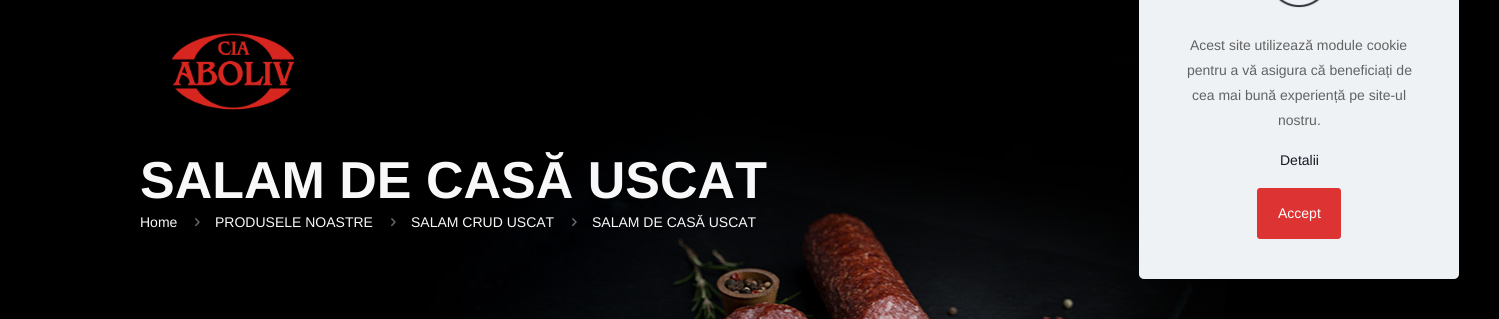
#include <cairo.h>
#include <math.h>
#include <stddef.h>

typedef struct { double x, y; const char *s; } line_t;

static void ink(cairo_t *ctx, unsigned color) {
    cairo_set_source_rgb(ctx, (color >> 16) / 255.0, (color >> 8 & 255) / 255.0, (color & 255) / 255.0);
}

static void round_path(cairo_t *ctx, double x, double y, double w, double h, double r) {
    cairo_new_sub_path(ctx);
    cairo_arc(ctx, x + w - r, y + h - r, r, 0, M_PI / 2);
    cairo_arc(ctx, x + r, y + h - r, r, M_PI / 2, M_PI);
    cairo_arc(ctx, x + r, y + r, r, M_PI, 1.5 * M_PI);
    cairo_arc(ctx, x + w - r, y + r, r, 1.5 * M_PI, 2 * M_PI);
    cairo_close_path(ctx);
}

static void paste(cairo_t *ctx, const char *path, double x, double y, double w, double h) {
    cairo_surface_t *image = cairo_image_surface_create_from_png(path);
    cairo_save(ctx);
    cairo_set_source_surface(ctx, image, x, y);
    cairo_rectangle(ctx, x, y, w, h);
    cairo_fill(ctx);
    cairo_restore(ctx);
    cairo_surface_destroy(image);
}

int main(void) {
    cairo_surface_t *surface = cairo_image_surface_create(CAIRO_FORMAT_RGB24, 1499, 319);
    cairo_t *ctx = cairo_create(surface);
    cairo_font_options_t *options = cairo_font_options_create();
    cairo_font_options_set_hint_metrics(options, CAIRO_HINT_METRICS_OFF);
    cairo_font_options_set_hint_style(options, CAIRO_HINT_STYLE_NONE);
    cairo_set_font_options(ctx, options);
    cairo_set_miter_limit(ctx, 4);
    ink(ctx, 0xFFFFFF);
    cairo_paint(ctx);
    paste(ctx, "media/1.png", 0, 0, 1499, 319);
    paste(ctx, "media/2.png", 172, 33, 122, 77);
    cairo_select_font_face(ctx, "Liberation Sans", CAIRO_FONT_SLANT_NORMAL, CAIRO_FONT_WEIGHT_BOLD);
    cairo_set_font_size(ctx, 52);
    ink(ctx, 0xF8F8F8);
    cairo_move_to(ctx, 140, 198);
    cairo_show_text(ctx, "SALAM DE CASĂ USCAT");
    cairo_select_font_face(ctx, "Liberation Sans", CAIRO_FONT_SLANT_NORMAL, CAIRO_FONT_WEIGHT_NORMAL);
    cairo_set_font_size(ctx, 14);
    cairo_move_to(ctx, 140, 227);
    cairo_show_text(ctx, "Home");
    paste(ctx, "media/3.png", 195, 218, 5, 9);
    cairo_move_to(ctx, 215, 227);
    cairo_show_text(ctx, "PRODUSELE NOASTRE");
    paste(ctx, "media/3.png", 391, 218, 5, 9);
    cairo_move_to(ctx, 411, 227);
    cairo_show_text(ctx, "SALAM CRUD USCAT");
    paste(ctx, "media/4.png", 572, 218, 5, 9);
    cairo_move_to(ctx, 592, 227);
    cairo_show_text(ctx, "SALAM DE CASĂ USCAT");
    ink(ctx, 0xEEF2F5);
    round_path(ctx, 1139, -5, 320, 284, 5);
    cairo_fill(ctx);
    paste(ctx, "media/5.png", 1278, 0, 42, 8);
    ink(ctx, 0x626262);
    {
        static const line_t items[] = {
            {1190, 50, "Acest site utilizează module cookie"},
            {1187, 75, "pentru a vă asigura că beneficiați de"},
            {1192, 100, "cea mai bună experiență pe site-ul"},
            {1278, 125, "nostru."},
        };
        for (size_t i = 0; i < sizeof items / sizeof *items; i++) {
            cairo_move_to(ctx, items[i].x, items[i].y);
            cairo_show_text(ctx, items[i].s);
        }
    }
    ink(ctx, 0x161922);
    cairo_move_to(ctx, 1280, 165);
    cairo_show_text(ctx, "Detalii");
    ink(ctx, 0xDD3333);
    round_path(ctx, 1257, 188, 84, 51, 3);
    cairo_fill(ctx);
    ink(ctx, 0xFFFFFF);
    cairo_move_to(ctx, 1278, 218);
    cairo_show_text(ctx, "Accept");
    cairo_surface_write_to_png(surface, "image.png");
    cairo_font_options_destroy(options);
    cairo_destroy(ctx);
    cairo_surface_destroy(surface);
    return 0;
}
